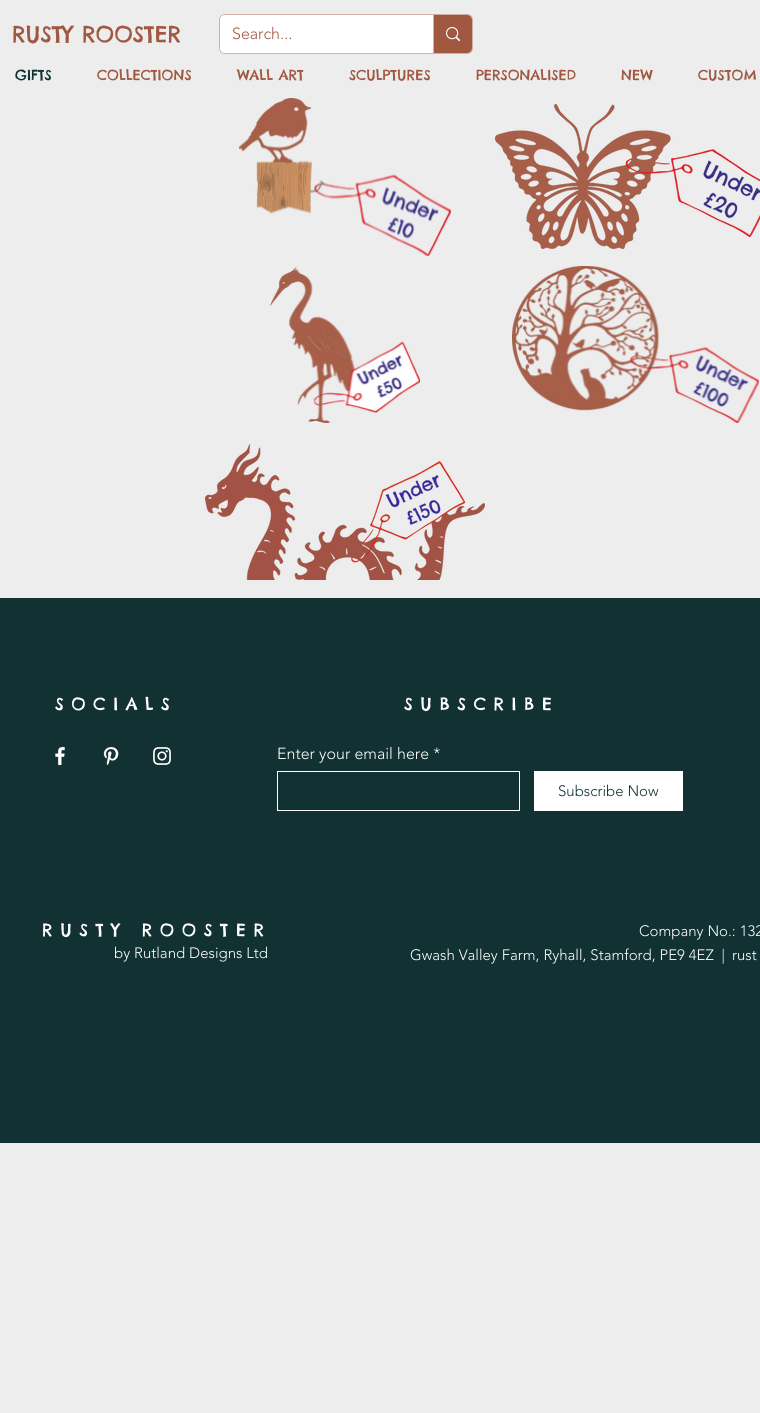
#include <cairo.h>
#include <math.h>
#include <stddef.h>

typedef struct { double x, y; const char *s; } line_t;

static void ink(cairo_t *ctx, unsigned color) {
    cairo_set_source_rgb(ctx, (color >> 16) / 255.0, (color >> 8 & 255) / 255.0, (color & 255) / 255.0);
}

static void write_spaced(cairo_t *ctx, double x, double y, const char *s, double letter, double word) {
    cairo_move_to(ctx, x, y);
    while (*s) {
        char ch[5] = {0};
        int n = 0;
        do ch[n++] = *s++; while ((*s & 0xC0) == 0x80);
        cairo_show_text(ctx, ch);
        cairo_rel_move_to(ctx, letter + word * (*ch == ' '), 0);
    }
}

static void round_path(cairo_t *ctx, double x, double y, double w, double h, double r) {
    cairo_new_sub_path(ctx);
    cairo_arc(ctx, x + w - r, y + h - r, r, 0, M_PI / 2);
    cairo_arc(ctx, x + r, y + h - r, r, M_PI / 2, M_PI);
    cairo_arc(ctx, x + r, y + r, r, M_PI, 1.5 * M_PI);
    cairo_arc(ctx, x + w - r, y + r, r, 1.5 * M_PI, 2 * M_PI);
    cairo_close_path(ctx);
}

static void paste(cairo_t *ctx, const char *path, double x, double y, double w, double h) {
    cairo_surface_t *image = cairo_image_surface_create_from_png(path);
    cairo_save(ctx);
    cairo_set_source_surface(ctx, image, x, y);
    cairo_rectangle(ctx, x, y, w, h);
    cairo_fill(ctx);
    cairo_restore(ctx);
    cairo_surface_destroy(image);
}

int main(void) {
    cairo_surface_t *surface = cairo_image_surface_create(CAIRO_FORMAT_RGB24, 760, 1413);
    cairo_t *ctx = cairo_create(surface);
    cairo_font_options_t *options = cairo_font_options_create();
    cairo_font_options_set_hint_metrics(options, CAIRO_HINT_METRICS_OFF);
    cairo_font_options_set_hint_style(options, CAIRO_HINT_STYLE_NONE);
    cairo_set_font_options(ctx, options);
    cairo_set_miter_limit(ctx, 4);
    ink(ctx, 0xEDEDEE);
    cairo_paint(ctx);
    cairo_select_font_face(ctx, "Chelsea Market", CAIRO_FONT_SLANT_NORMAL, CAIRO_FONT_WEIGHT_NORMAL);
    cairo_set_font_size(ctx, 22);
    ink(ctx, 0xA05841);
    cairo_move_to(ctx, 12, 42);
    cairo_show_text(ctx, "RUSTY ROOSTER");
    round_path(ctx, 219.5, 14.5, 253, 39, 5.5);
    ink(ctx, 0xD0B0A6);
    cairo_set_line_width(ctx, 1);
    cairo_stroke(ctx);
    ink(ctx, 0xFFFFFF);
    round_path(ctx, 220, 15, 252, 38, 5);
    cairo_fill(ctx);
    cairo_select_font_face(ctx, "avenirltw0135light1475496 Light", CAIRO_FONT_SLANT_NORMAL, CAIRO_FONT_WEIGHT_NORMAL);
    cairo_set_font_size(ctx, 16);
    ink(ctx, 0xA05841);
    cairo_move_to(ctx, 232, 39);
    cairo_show_text(ctx, "Search...");
    cairo_new_path(ctx);
    cairo_move_to(ctx, 433, 15);
    cairo_line_to(ctx, 467, 15);
    cairo_curve_to(ctx, 470, 15, 472, 17, 472, 20);
    cairo_line_to(ctx, 472, 48);
    cairo_curve_to(ctx, 472, 51, 470, 53, 467, 53);
    cairo_line_to(ctx, 433, 53);
    cairo_close_path(ctx);
    cairo_fill(ctx);
    ink(ctx, 0xD0B0A6);
    cairo_rectangle(ctx, 433, 15, 1, 38);
    cairo_fill(ctx);
    paste(ctx, "media/1.png", 446, 27, 14, 14);
    cairo_select_font_face(ctx, "Chelsea Market", CAIRO_FONT_SLANT_NORMAL, CAIRO_FONT_WEIGHT_NORMAL);
    cairo_set_font_size(ctx, 14);
    ink(ctx, 0x123132);
    cairo_move_to(ctx, 15, 80);
    cairo_show_text(ctx, "GIFTS");
    ink(ctx, 0xA05841);
    {
        static const line_t items[] = {
            {97, 80, "COLLECTIONS"},
            {237, 80, "WALL ART"},
            {349, 80, "SCULPTURES"},
            {476, 80, "PERSONALISED"},
            {621, 80, "NEW"},
            {698, 80, "CUSTOM"},
        };
        for (size_t i = 0; i < sizeof items / sizeof *items; i++) {
            cairo_move_to(ctx, items[i].x, items[i].y);
            cairo_show_text(ctx, items[i].s);
        }
    }
    paste(ctx, "media/2.png", 239, 98, 212, 158);
    paste(ctx, "media/3.png", 495, 104, 265, 145);
    paste(ctx, "media/4.png", 270, 267, 150, 156);
    paste(ctx, "media/5.png", 512, 266, 247, 157);
    paste(ctx, "media/6.png", 205, 444, 280, 136);
    ink(ctx, 0x123132);
    cairo_rectangle(ctx, 0, 598, 760, 545);
    cairo_fill(ctx);
    cairo_set_font_size(ctx, 17);
    ink(ctx, 0xFFFFFF);
    write_spaced(ctx, 55, 710, "SOCIALS", 7.6, 0);
    write_spaced(ctx, 404, 710, "SUBSCRIBE", 7.6, 0);
    paste(ctx, "media/7.png", 55, 746, 10, 20);
    paste(ctx, "media/8.png", 103, 746, 16, 19);
    paste(ctx, "media/9.png", 153, 747, 18, 18);
    cairo_select_font_face(ctx, "avenirltw0135light1475496 Light", CAIRO_FONT_SLANT_NORMAL, CAIRO_FONT_WEIGHT_NORMAL);
    cairo_set_font_size(ctx, 16);
    cairo_move_to(ctx, 277, 759);
    cairo_show_text(ctx, "Enter your email here *");
    cairo_rectangle(ctx, 277.5, 771.5, 242, 39);
    cairo_stroke(ctx);
    cairo_rectangle(ctx, 534, 771, 149, 40);
    cairo_fill(ctx);
    cairo_set_font_size(ctx, 15);
    ink(ctx, 0x123132);
    cairo_move_to(ctx, 558, 796);
    cairo_show_text(ctx, "Subscribe Now");
    cairo_select_font_face(ctx, "Chelsea Market", CAIRO_FONT_SLANT_NORMAL, CAIRO_FONT_WEIGHT_NORMAL);
    cairo_set_font_size(ctx, 17);
    ink(ctx, 0xFFFFFF);
    write_spaced(ctx, 42, 936, "RUSTY ROOSTER", 7.6, 0);
    cairo_select_font_face(ctx, "avenirltw0135light1475496 Light", CAIRO_FONT_SLANT_NORMAL, CAIRO_FONT_WEIGHT_NORMAL);
    cairo_set_font_size(ctx, 15);
    {
        static const line_t items[] = {
            {639, 936, "Company No.: 132"},
            {410, 960, "Gwash Valley Farm, Ryhall, Stamford, PE9 4EZ  |"},
            {732, 960, "rust"},
            {114, 958, "by Rutland Designs Ltd"},
        };
        for (size_t i = 0; i < sizeof items / sizeof *items; i++) {
            cairo_move_to(ctx, items[i].x, items[i].y);
            cairo_show_text(ctx, items[i].s);
        }
    }
    cairo_surface_write_to_png(surface, "image.png");
    cairo_font_options_destroy(options);
    cairo_destroy(ctx);
    cairo_surface_destroy(surface);
    return 0;
}
